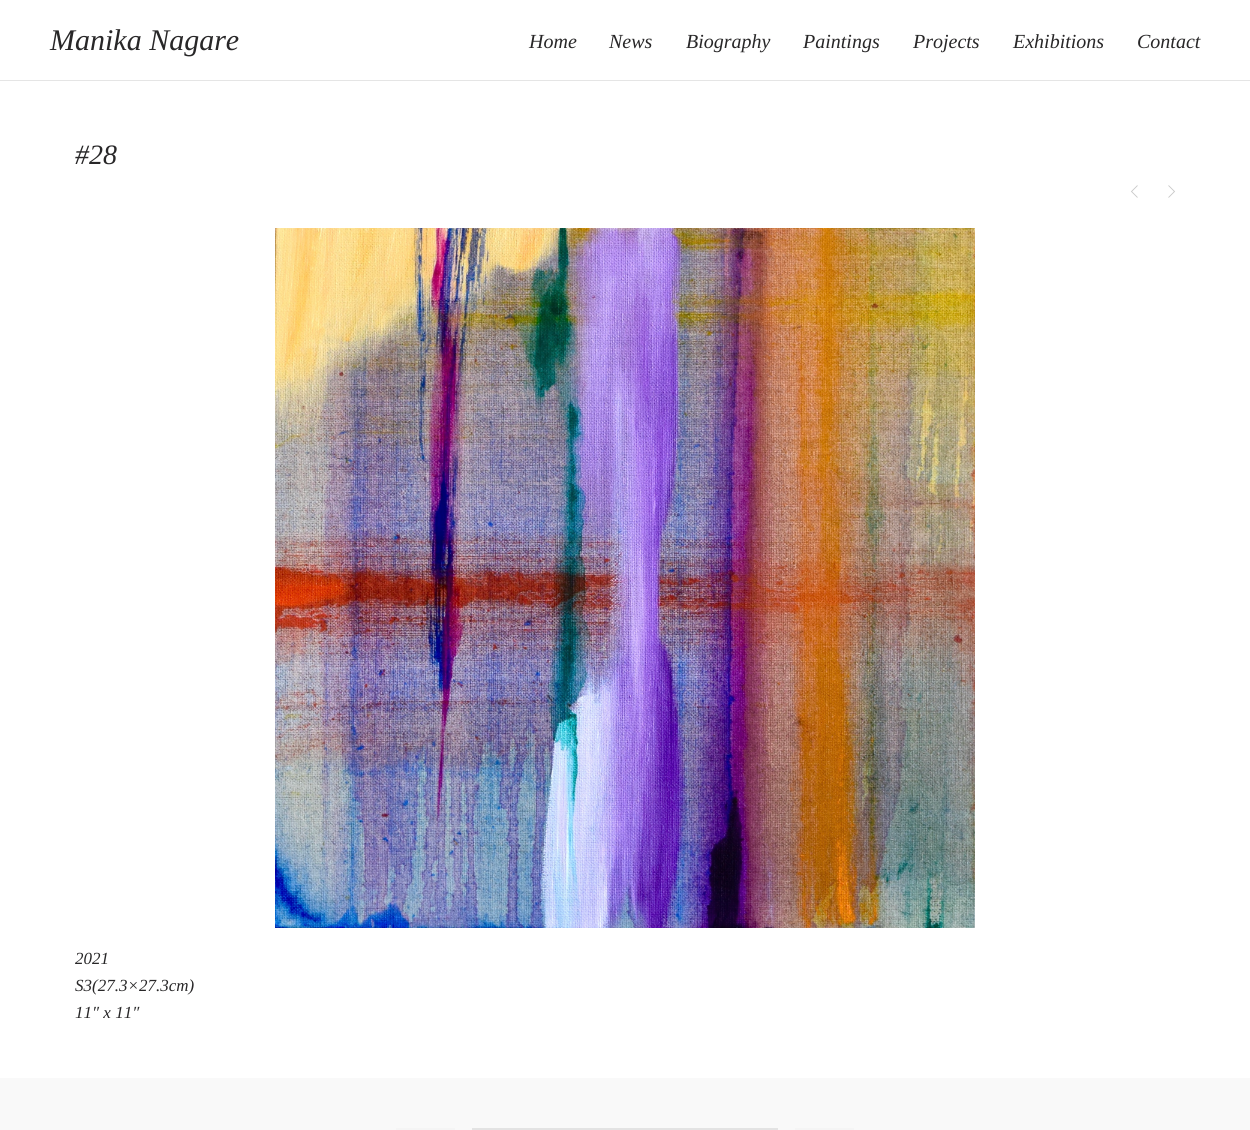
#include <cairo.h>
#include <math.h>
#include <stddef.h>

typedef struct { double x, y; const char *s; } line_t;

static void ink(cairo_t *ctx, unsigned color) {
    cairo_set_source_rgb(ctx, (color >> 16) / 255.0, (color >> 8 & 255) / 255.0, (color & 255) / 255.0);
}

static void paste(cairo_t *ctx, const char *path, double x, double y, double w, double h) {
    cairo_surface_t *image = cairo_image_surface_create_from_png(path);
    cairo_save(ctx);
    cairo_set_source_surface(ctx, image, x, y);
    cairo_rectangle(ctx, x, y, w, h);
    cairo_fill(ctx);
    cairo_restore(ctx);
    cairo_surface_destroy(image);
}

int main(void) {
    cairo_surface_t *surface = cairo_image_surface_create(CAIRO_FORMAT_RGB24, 1250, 1130);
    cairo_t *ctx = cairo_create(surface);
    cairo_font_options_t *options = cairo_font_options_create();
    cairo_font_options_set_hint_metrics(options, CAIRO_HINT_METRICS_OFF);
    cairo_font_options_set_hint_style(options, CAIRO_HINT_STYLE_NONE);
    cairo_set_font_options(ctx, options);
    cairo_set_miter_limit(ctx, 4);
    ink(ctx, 0xFFFFFF);
    cairo_paint(ctx);
    ink(ctx, 0xE5E5E5);
    cairo_rectangle(ctx, 0, 80, 1250, 1);
    cairo_fill(ctx);
    cairo_select_font_face(ctx, "Liberation Serif", CAIRO_FONT_SLANT_ITALIC, CAIRO_FONT_WEIGHT_NORMAL);
    cairo_set_font_size(ctx, 30);
    ink(ctx, 0x282728);
    cairo_move_to(ctx, 50, 50);
    cairo_show_text(ctx, "Manika Nagare");
    cairo_set_font_size(ctx, 20);
    {
        static const line_t items[] = {
            {529, 48, "Home"},
            {609, 48, "News"},
            {686, 48, "Biography"},
            {803, 48, "Paintings"},
            {913, 48, "Projects"},
            {1013, 48, "Exhibitions"},
            {1137, 48, "Contact"},
        };
        for (size_t i = 0; i < sizeof items / sizeof *items; i++) {
            cairo_move_to(ctx, items[i].x, items[i].y);
            cairo_show_text(ctx, items[i].s);
        }
    }
    cairo_set_font_size(ctx, 28);
    cairo_move_to(ctx, 75, 164);
    cairo_show_text(ctx, "#28");
    cairo_new_path(ctx);
    cairo_move_to(ctx, 1137.5, 185.5);
    cairo_line_to(ctx, 1131.5, 191.5);
    cairo_line_to(ctx, 1137.5, 197.5);
    cairo_move_to(ctx, 1168.5, 185.5);
    cairo_line_to(ctx, 1174.5, 191.5);
    cairo_line_to(ctx, 1168.5, 197.5);
    ink(ctx, 0xC9C9C9);
    cairo_set_line_width(ctx, 0.9);
    cairo_stroke(ctx);
    paste(ctx, "media/1.png", 275, 228, 700, 700);
    cairo_set_font_size(ctx, 17);
    ink(ctx, 0x282728);
    {
        static const line_t items[] = {
            {75, 964, "2021"},
            {75, 991, "S3(27.3×27.3cm)"},
            {75, 1018, "11″ x 11″"},
        };
        for (size_t i = 0; i < sizeof items / sizeof *items; i++) {
            cairo_move_to(ctx, items[i].x, items[i].y);
            cairo_show_text(ctx, items[i].s);
        }
    }
    ink(ctx, 0xF9F9F9);
    cairo_rectangle(ctx, 0, 1078, 1250, 52);
    cairo_fill(ctx);
    cairo_rectangle(ctx, 397.5, 1129.5, 56, 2);
    ink(ctx, 0xF5F5F5);
    cairo_set_line_width(ctx, 3);
    cairo_stroke(ctx);
    cairo_rectangle(ctx, 473.5, 1129.5, 303, 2);
    ink(ctx, 0xE3E3E3);
    cairo_stroke(ctx);
    cairo_rectangle(ctx, 796.5, 1129.5, 56, 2);
    ink(ctx, 0xF5F5F5);
    cairo_stroke(ctx);
    cairo_surface_write_to_png(surface, "image.png");
    cairo_font_options_destroy(options);
    cairo_destroy(ctx);
    cairo_surface_destroy(surface);
    return 0;
}
